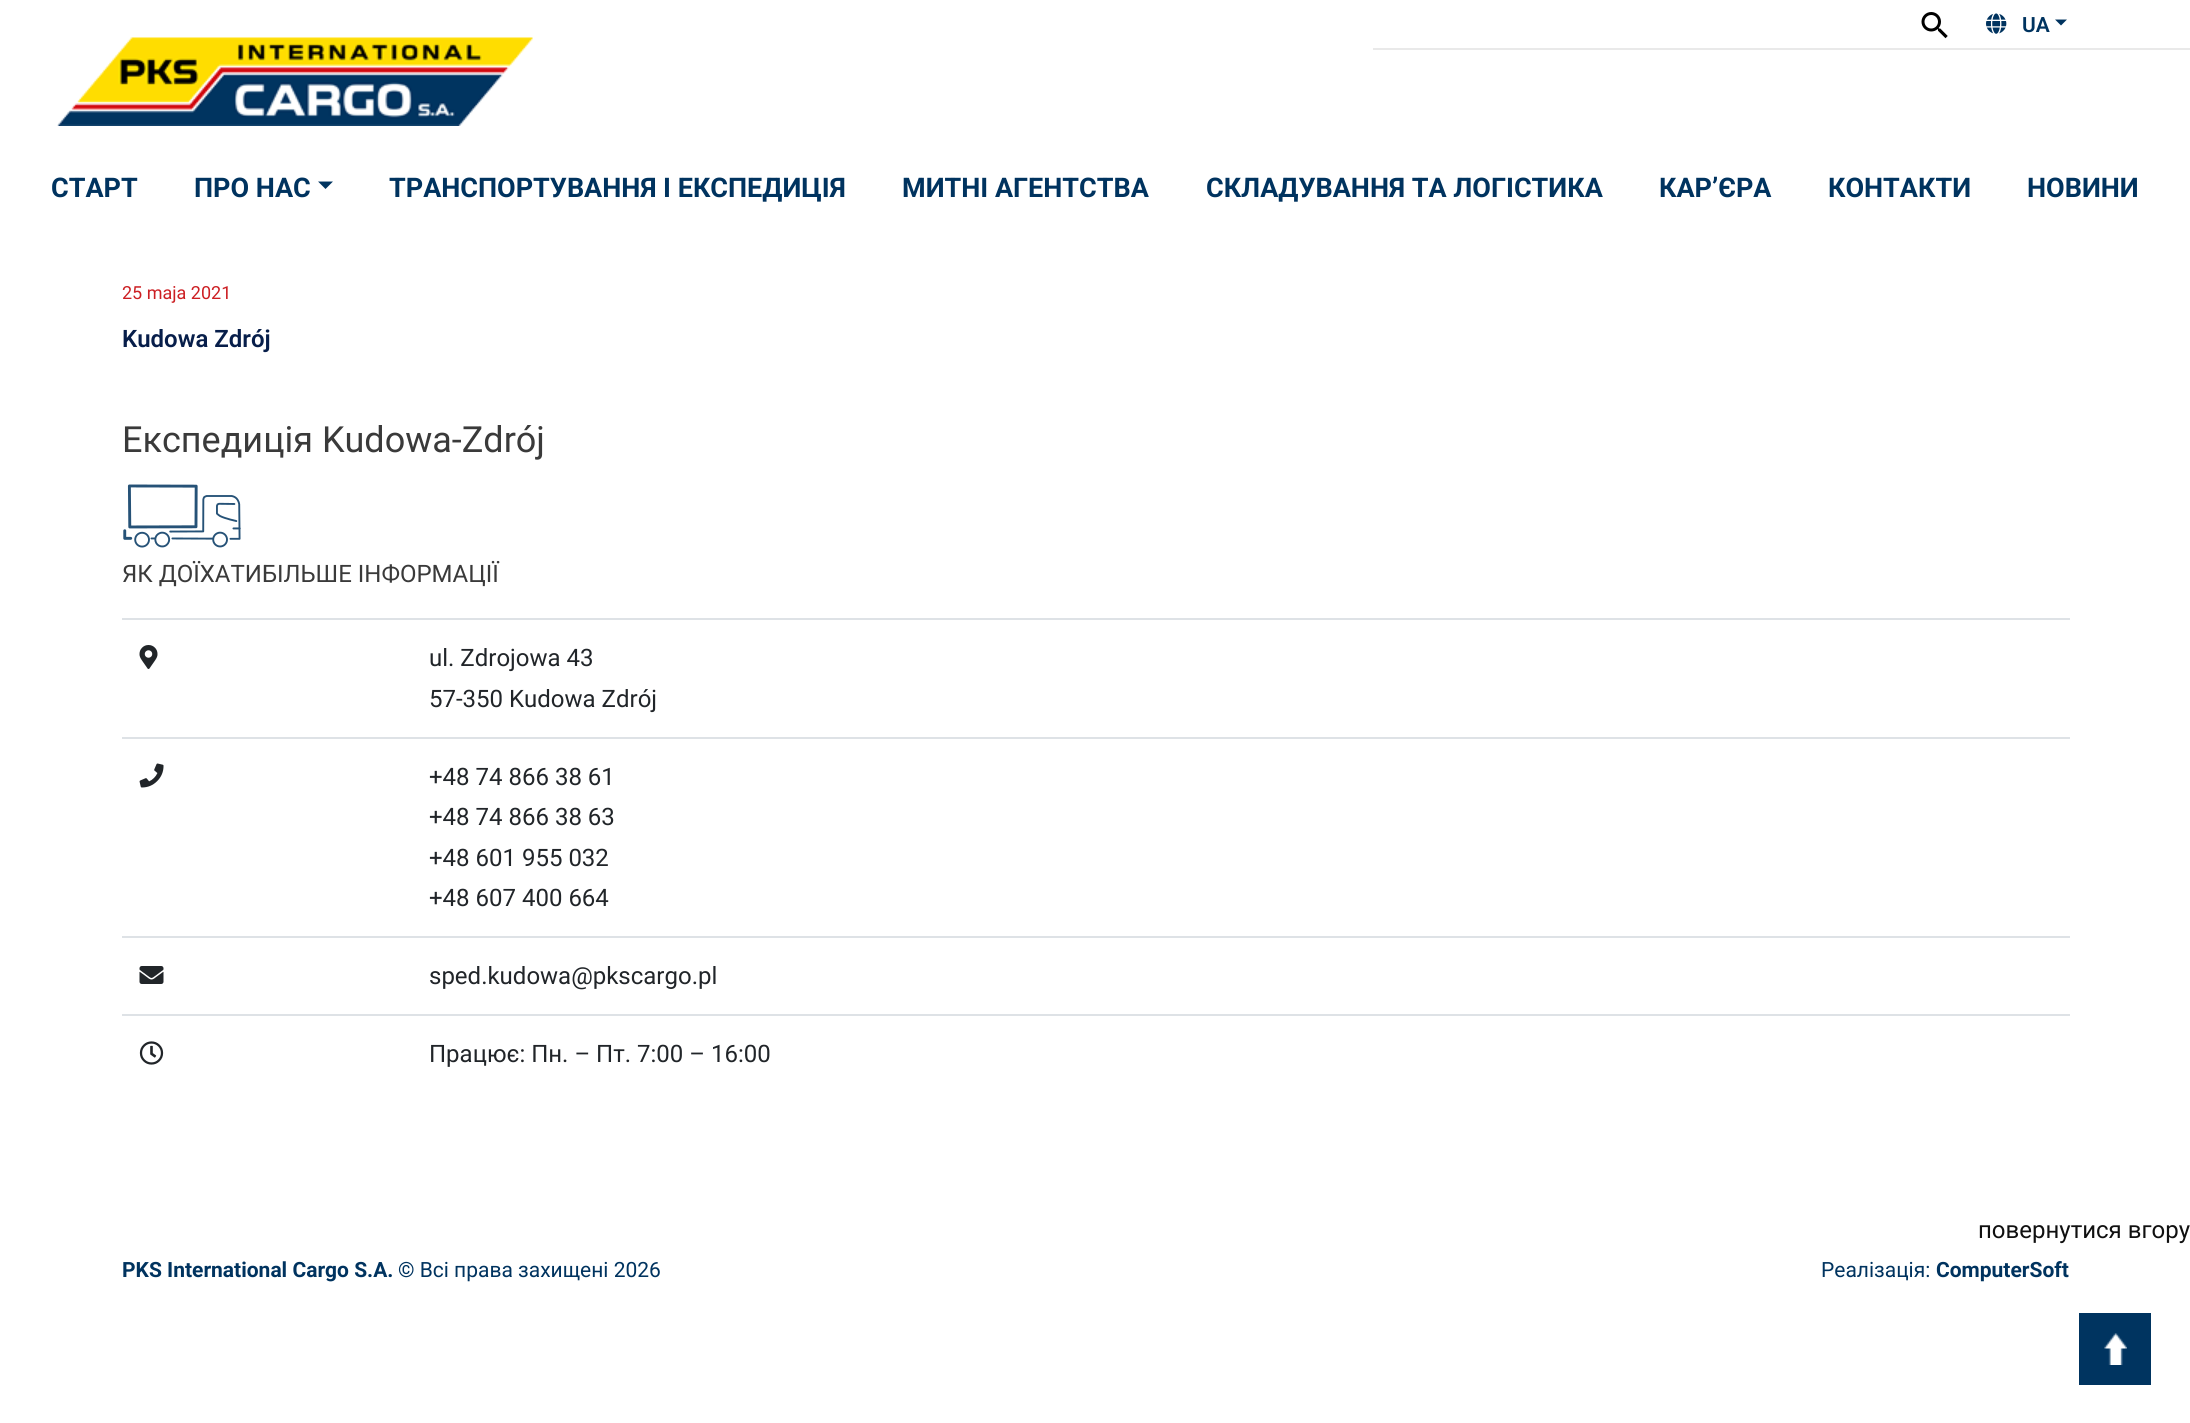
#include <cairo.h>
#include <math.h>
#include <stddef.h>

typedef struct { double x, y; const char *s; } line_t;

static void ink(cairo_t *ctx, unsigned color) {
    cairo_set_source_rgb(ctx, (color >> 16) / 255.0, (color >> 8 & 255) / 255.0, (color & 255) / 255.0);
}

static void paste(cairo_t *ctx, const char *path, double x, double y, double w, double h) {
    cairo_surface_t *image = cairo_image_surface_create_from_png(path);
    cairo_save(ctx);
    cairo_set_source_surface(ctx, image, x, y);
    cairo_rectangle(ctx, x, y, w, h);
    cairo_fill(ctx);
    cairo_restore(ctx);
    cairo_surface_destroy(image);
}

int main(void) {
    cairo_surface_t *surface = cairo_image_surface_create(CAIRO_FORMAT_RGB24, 2190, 1423);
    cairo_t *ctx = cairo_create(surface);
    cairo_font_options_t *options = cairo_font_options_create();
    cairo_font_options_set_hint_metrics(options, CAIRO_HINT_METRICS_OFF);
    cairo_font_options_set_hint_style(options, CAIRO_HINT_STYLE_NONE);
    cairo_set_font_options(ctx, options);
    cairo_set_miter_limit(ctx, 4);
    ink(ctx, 0xFFFFFF);
    cairo_paint(ctx);
    paste(ctx, "media/1.png", 1921, 12, 27, 27);
    paste(ctx, "media/2.png", 1986, 13, 21, 21);
    cairo_select_font_face(ctx, "Roboto SemiBold", CAIRO_FONT_SLANT_NORMAL, CAIRO_FONT_WEIGHT_NORMAL);
    cairo_set_font_size(ctx, 21);
    ink(ctx, 0x00335F);
    cairo_move_to(ctx, 2022, 32);
    cairo_show_text(ctx, "UA");
    cairo_new_path(ctx);
    cairo_move_to(ctx, 2055, 19.5);
    cairo_line_to(ctx, 2067, 19.5);
    cairo_line_to(ctx, 2061, 25.5);
    cairo_close_path(ctx);
    cairo_fill(ctx);
    ink(ctx, 0xE9E9E9);
    cairo_rectangle(ctx, 1373, 48, 817, 2);
    cairo_fill(ctx);
    paste(ctx, "media/3.png", 57, 37, 476, 89);
    cairo_select_font_face(ctx, "Roboto", CAIRO_FONT_SLANT_NORMAL, CAIRO_FONT_WEIGHT_BOLD);
    cairo_set_font_size(ctx, 27);
    ink(ctx, 0x00335F);
    cairo_move_to(ctx, 51, 197);
    cairo_show_text(ctx, "СТАРТ");
    cairo_move_to(ctx, 194, 197);
    cairo_show_text(ctx, "ПРО НАС");
    ink(ctx, 0x003460);
    cairo_new_path(ctx);
    cairo_move_to(ctx, 318, 181.5);
    cairo_line_to(ctx, 333, 181.5);
    cairo_line_to(ctx, 325.5, 189);
    cairo_close_path(ctx);
    cairo_fill(ctx);
    ink(ctx, 0x00335F);
    {
        static const line_t items[] = {
            {389, 197, "ТРАНСПОРТУВАННЯ І ЕКСПЕДИЦІЯ"},
            {902, 197, "МИТНІ АГЕНТСТВА"},
            {1206, 197, "СКЛАДУВАННЯ ТА ЛОГІСТИКА"},
            {1659, 197, "КАР’ЄРА"},
            {1828, 197, "КОНТАКТИ"},
            {2027, 197, "НОВИНИ"},
        };
        for (size_t i = 0; i < sizeof items / sizeof *items; i++) {
            cairo_move_to(ctx, items[i].x, items[i].y);
            cairo_show_text(ctx, items[i].s);
        }
    }
    cairo_select_font_face(ctx, "Roboto", CAIRO_FONT_SLANT_NORMAL, CAIRO_FONT_WEIGHT_NORMAL);
    cairo_set_font_size(ctx, 18);
    ink(ctx, 0xCC1F23);
    cairo_move_to(ctx, 122, 299);
    cairo_show_text(ctx, "25 maja 2021");
    cairo_select_font_face(ctx, "Roboto SemiBold", CAIRO_FONT_SLANT_NORMAL, CAIRO_FONT_WEIGHT_NORMAL);
    cairo_set_font_size(ctx, 24);
    ink(ctx, 0x071E4A);
    cairo_move_to(ctx, 122, 347);
    cairo_show_text(ctx, "Kudowa Zdrój");
    cairo_select_font_face(ctx, "Roboto", CAIRO_FONT_SLANT_NORMAL, CAIRO_FONT_WEIGHT_NORMAL);
    cairo_set_font_size(ctx, 36);
    ink(ctx, 0x3A3A3A);
    cairo_move_to(ctx, 122, 452);
    cairo_show_text(ctx, "Експедиція Kudowa-Zdrój");
    paste(ctx, "media/4.png", 123, 484, 118, 64);
    cairo_set_font_size(ctx, 24);
    cairo_move_to(ctx, 122, 582);
    cairo_show_text(ctx, "ЯК ДОЇХАТИБІЛЬШЕ ІНФОРМАЦІЇ");
    ink(ctx, 0xDEE2E6);
    cairo_rectangle(ctx, 122, 618, 1948, 2);
    cairo_fill(ctx);
    paste(ctx, "media/5.png", 139, 645, 19, 24);
    ink(ctx, 0x212529);
    cairo_move_to(ctx, 429, 666);
    cairo_show_text(ctx, "ul. Zdrojowa 43");
    cairo_move_to(ctx, 429, 707);
    cairo_show_text(ctx, "57-350 Kudowa Zdrój");
    ink(ctx, 0xDEE2E6);
    cairo_rectangle(ctx, 122, 737, 1948, 2);
    cairo_fill(ctx);
    paste(ctx, "media/6.png", 139, 763, 25, 25);
    ink(ctx, 0x212529);
    {
        static const line_t items[] = {
            {429, 785, "+48 74 866 38 61"},
            {429, 825, "+48 74 866 38 63"},
            {429, 866, "+48 601 955 032"},
            {429, 906, "+48 607 400 664"},
        };
        for (size_t i = 0; i < sizeof items / sizeof *items; i++) {
            cairo_move_to(ctx, items[i].x, items[i].y);
            cairo_show_text(ctx, items[i].s);
        }
    }
    ink(ctx, 0xDEE2E6);
    cairo_rectangle(ctx, 122, 936, 1948, 2);
    cairo_fill(ctx);
    paste(ctx, "media/7.png", 139, 966, 25, 18);
    ink(ctx, 0x212529);
    cairo_move_to(ctx, 429, 984);
    cairo_show_text(ctx, "sped.kudowa@pkscargo.pl");
    ink(ctx, 0xDEE2E6);
    cairo_rectangle(ctx, 122, 1014, 1948, 2);
    cairo_fill(ctx);
    paste(ctx, "media/8.png", 139, 1041, 25, 24);
    ink(ctx, 0x212529);
    cairo_move_to(ctx, 429, 1062);
    cairo_show_text(ctx, "Працює: Пн. – Пт. 7:00 – 16:00");
    ink(ctx, 0x003460);
    cairo_rectangle(ctx, 2079, 1313, 72, 72);
    cairo_fill(ctx);
    paste(ctx, "media/9.png", 2104, 1333, 23, 32);
    ink(ctx, 0x101010);
    cairo_move_to(ctx, 1978, 1238);
    cairo_show_text(ctx, "повернутися вгору");
    cairo_select_font_face(ctx, "Roboto", CAIRO_FONT_SLANT_NORMAL, CAIRO_FONT_WEIGHT_BOLD);
    cairo_set_font_size(ctx, 21);
    ink(ctx, 0x00335F);
    cairo_move_to(ctx, 122, 1277);
    cairo_show_text(ctx, "PKS International Cargo S.A.");
    cairo_select_font_face(ctx, "Roboto", CAIRO_FONT_SLANT_NORMAL, CAIRO_FONT_WEIGHT_NORMAL);
    cairo_move_to(ctx, 398, 1277);
    cairo_show_text(ctx, "© Всі права захищені 2026");
    cairo_move_to(ctx, 1821, 1277);
    cairo_show_text(ctx, "Реалізація:");
    cairo_select_font_face(ctx, "Roboto", CAIRO_FONT_SLANT_NORMAL, CAIRO_FONT_WEIGHT_BOLD);
    cairo_move_to(ctx, 1936, 1277);
    cairo_show_text(ctx, "ComputerSoft");
    cairo_surface_write_to_png(surface, "image.png");
    cairo_font_options_destroy(options);
    cairo_destroy(ctx);
    cairo_surface_destroy(surface);
    return 0;
}
